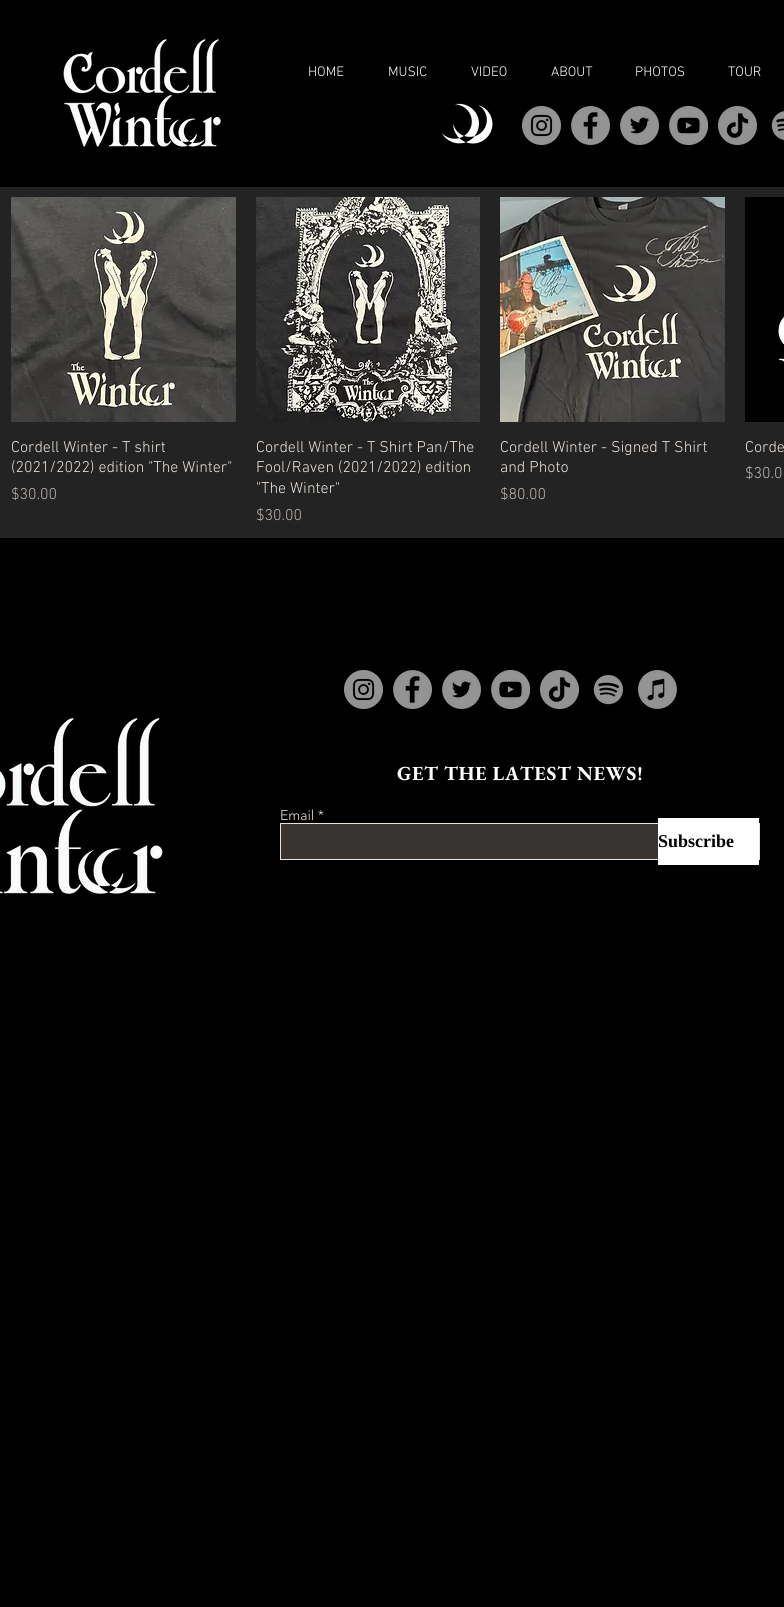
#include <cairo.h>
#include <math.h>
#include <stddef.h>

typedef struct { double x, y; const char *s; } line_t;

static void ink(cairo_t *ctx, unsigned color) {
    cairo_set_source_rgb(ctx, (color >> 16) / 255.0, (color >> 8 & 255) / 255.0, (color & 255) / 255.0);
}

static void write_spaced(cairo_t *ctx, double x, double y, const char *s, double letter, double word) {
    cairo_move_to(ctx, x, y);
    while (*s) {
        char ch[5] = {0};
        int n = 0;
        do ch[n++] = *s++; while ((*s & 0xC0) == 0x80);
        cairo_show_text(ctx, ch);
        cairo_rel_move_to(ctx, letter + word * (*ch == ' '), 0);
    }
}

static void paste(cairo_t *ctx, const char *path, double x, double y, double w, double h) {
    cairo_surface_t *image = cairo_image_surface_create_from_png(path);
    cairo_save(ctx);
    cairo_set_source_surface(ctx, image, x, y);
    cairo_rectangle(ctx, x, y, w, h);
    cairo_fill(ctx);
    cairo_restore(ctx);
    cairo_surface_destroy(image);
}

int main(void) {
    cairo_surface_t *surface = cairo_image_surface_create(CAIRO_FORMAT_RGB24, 784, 1607);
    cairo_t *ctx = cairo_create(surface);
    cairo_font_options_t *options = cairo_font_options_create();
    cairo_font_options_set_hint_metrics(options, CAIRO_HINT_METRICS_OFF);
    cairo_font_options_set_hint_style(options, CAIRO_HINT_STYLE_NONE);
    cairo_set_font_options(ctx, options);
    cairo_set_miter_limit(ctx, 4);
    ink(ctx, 0x000000);
    cairo_paint(ctx);
    paste(ctx, "media/1.png", 63, 39, 158, 108);
    cairo_select_font_face(ctx, "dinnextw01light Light", CAIRO_FONT_SLANT_NORMAL, CAIRO_FONT_WEIGHT_NORMAL);
    cairo_set_font_size(ctx, 14);
    ink(ctx, 0xFFFFFF);
    {
        static const line_t items[] = {
            {308, 76, "HOME"},
            {388, 76, "MUSIC"},
            {471, 76, "VIDEO"},
            {551, 76, "ABOUT"},
            {635, 76, "PHOTOS"},
            {728, 76, "TOUR"},
        };
        for (size_t i = 0; i < sizeof items / sizeof *items; i++) {
            cairo_move_to(ctx, items[i].x, items[i].y);
            cairo_show_text(ctx, items[i].s);
        }
    }
    paste(ctx, "media/2.png", 442, 103, 51, 41);
    paste(ctx, "media/3.png", 522, 106, 39, 39);
    paste(ctx, "media/4.png", 571, 106, 39, 39);
    paste(ctx, "media/5.png", 620, 106, 39, 39);
    paste(ctx, "media/6.png", 669, 106, 39, 39);
    paste(ctx, "media/7.png", 718, 106, 39, 39);
    paste(ctx, "media/8.png", 771, 111, 13, 29);
    ink(ctx, 0x232323);
    cairo_rectangle(ctx, 0, 187, 784, 351);
    cairo_fill(ctx);
    paste(ctx, "media/9.png", 11, 197, 225, 225);
    cairo_set_font_size(ctx, 16);
    ink(ctx, 0xEBE1D9);
    cairo_move_to(ctx, 11, 452);
    cairo_show_text(ctx, "Cordell Winter - T shirt");
    cairo_move_to(ctx, 11, 472);
    cairo_show_text(ctx, "(2021/2022) edition \"The Winter\"");
    ink(ctx, 0xBEB6B0);
    cairo_move_to(ctx, 11, 499);
    cairo_show_text(ctx, "$30.00");
    paste(ctx, "media/10.png", 256, 197, 224, 225);
    ink(ctx, 0xEBE1D9);
    {
        static const line_t items[] = {
            {256, 452, "Cordell Winter - T Shirt Pan/The"},
            {256, 472, "Fool/Raven (2021/2022) edition"},
            {256, 493, "\"The Winter\""},
        };
        for (size_t i = 0; i < sizeof items / sizeof *items; i++) {
            cairo_move_to(ctx, items[i].x, items[i].y);
            cairo_show_text(ctx, items[i].s);
        }
    }
    ink(ctx, 0xBEB6B0);
    cairo_move_to(ctx, 256, 520);
    cairo_show_text(ctx, "$30.00");
    paste(ctx, "media/11.png", 500, 197, 225, 225);
    ink(ctx, 0xEBE1D9);
    cairo_move_to(ctx, 500, 452);
    cairo_show_text(ctx, "Cordell Winter - Signed T Shirt");
    cairo_move_to(ctx, 500, 472);
    cairo_show_text(ctx, "and Photo");
    ink(ctx, 0xBEB6B0);
    cairo_move_to(ctx, 500, 499);
    cairo_show_text(ctx, "$80.00");
    paste(ctx, "media/12.png", 745, 197, 39, 225);
    ink(ctx, 0xEBE1D9);
    cairo_move_to(ctx, 745, 452);
    cairo_show_text(ctx, "Corde");
    ink(ctx, 0xBEB6B0);
    cairo_move_to(ctx, 745, 478);
    cairo_show_text(ctx, "$30.0");
    paste(ctx, "media/3.png", 344, 670, 39, 39);
    paste(ctx, "media/4.png", 393, 670, 39, 39);
    paste(ctx, "media/5.png", 442, 670, 39, 39);
    paste(ctx, "media/6.png", 491, 670, 39, 39);
    paste(ctx, "media/7.png", 540, 670, 39, 39);
    paste(ctx, "media/13.png", 593, 674, 31, 31);
    paste(ctx, "media/14.png", 638, 670, 39, 39);
    paste(ctx, "media/15.png", 0, 718, 163, 176);
    cairo_select_font_face(ctx, "EB Garamond", CAIRO_FONT_SLANT_NORMAL, CAIRO_FONT_WEIGHT_BOLD);
    cairo_set_font_size(ctx, 20);
    ink(ctx, 0xFFFFFF);
    write_spaced(ctx, 397, 780, "GET THE LATEST NEWS!", 0.6, 0);
    cairo_select_font_face(ctx, "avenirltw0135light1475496 Light", CAIRO_FONT_SLANT_NORMAL, CAIRO_FONT_WEIGHT_NORMAL);
    cairo_set_font_size(ctx, 14);
    ink(ctx, 0xEBE1D9);
    cairo_move_to(ctx, 280, 820);
    cairo_show_text(ctx, "Email *");
    ink(ctx, 0x383432);
    cairo_rectangle(ctx, 281, 824, 377, 35);
    cairo_fill(ctx);
    cairo_rectangle(ctx, 280.5, 823.5, 479, 36);
    ink(ctx, 0xEBE1D9);
    cairo_set_line_width(ctx, 1);
    cairo_stroke(ctx);
    ink(ctx, 0xFFFFFF);
    cairo_rectangle(ctx, 658, 818, 101, 47);
    cairo_fill(ctx);
    cairo_select_font_face(ctx, "Liberation Serif", CAIRO_FONT_SLANT_NORMAL, CAIRO_FONT_WEIGHT_BOLD);
    cairo_set_font_size(ctx, 18);
    ink(ctx, 0x000000);
    cairo_move_to(ctx, 658, 847);
    cairo_show_text(ctx, "Subscribe");
    cairo_surface_write_to_png(surface, "image.png");
    cairo_font_options_destroy(options);
    cairo_destroy(ctx);
    cairo_surface_destroy(surface);
    return 0;
}
